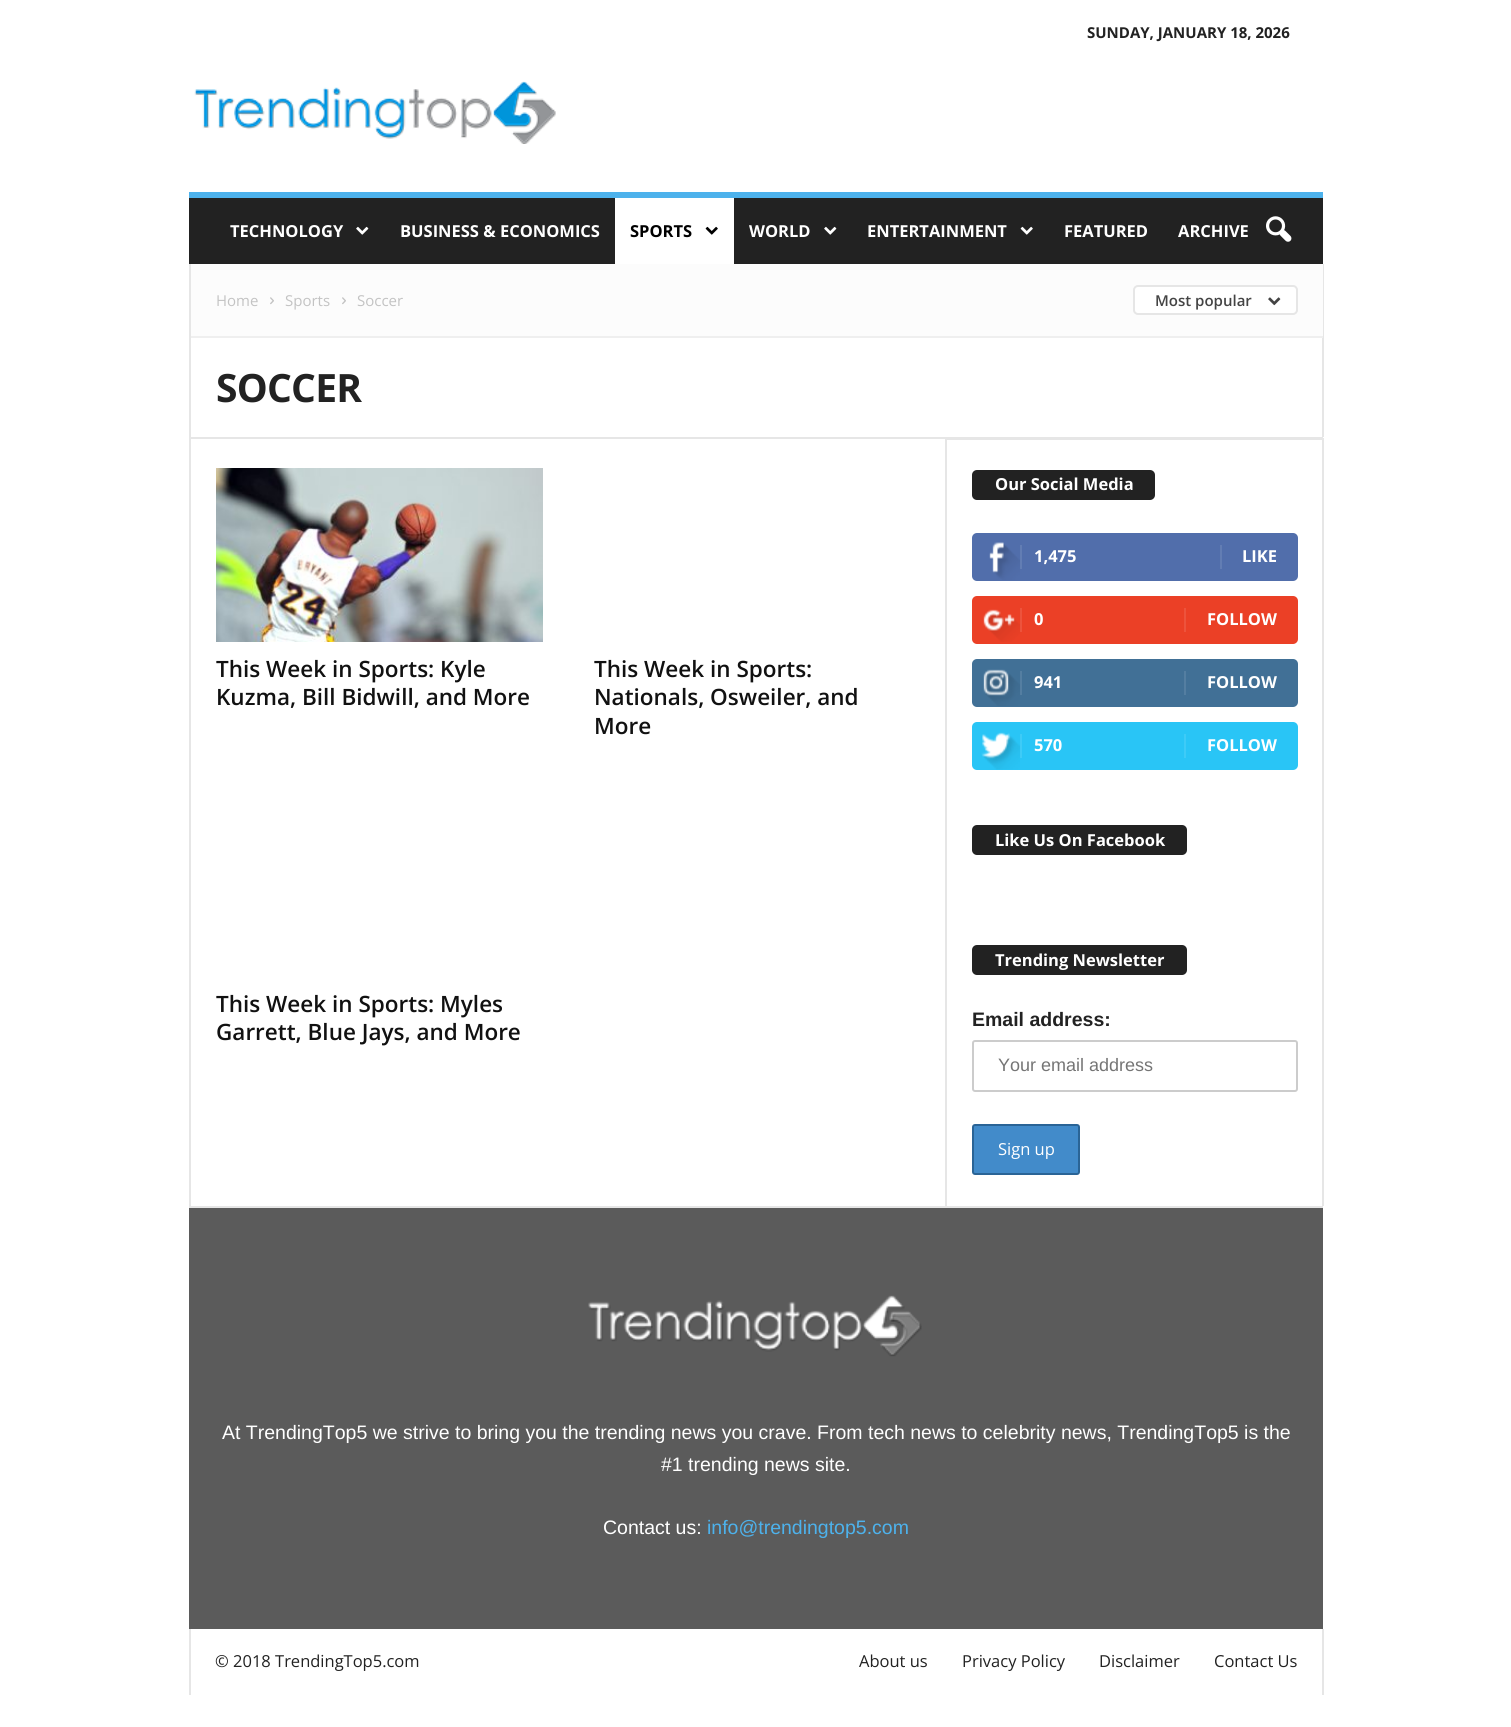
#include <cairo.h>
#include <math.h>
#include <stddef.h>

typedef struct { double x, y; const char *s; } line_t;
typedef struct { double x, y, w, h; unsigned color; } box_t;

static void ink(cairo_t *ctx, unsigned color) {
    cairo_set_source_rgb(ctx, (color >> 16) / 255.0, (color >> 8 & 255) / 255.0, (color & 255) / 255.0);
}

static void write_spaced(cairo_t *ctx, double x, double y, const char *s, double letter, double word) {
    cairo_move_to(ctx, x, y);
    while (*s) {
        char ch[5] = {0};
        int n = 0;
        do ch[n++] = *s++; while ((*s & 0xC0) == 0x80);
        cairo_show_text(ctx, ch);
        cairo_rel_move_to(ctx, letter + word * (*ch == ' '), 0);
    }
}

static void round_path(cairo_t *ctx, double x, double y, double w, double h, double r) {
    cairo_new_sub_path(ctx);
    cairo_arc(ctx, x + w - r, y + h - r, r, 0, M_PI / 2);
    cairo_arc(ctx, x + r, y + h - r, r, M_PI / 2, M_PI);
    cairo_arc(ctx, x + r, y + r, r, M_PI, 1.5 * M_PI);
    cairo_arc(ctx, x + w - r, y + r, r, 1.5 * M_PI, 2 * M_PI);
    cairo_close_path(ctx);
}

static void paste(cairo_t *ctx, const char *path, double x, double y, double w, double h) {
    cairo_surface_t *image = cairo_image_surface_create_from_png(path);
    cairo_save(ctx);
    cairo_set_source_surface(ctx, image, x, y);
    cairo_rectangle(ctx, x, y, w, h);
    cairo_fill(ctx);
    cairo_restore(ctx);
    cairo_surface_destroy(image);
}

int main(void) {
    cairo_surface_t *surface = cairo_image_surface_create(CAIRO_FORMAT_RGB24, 1511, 1727);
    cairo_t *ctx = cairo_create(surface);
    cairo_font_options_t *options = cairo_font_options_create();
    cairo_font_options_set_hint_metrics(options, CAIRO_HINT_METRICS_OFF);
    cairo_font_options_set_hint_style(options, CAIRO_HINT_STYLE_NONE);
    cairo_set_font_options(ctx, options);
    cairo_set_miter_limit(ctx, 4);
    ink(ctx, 0xFFFFFF);
    cairo_paint(ctx);
    cairo_select_font_face(ctx, "Open Sans", CAIRO_FONT_SLANT_NORMAL, CAIRO_FONT_WEIGHT_BOLD);
    cairo_set_font_size(ctx, 15);
    ink(ctx, 0x222222);
    cairo_move_to(ctx, 1087, 38);
    cairo_show_text(ctx, "SUNDAY, JANUARY 18, 2026");
    paste(ctx, "media/1.png", 194, 81, 362, 63);
    cairo_rectangle(ctx, 189, 198, 1134, 66);
    cairo_fill(ctx);
    ink(ctx, 0x4DB2EC);
    cairo_rectangle(ctx, 189, 192, 1134, 6);
    cairo_fill(ctx);
    cairo_set_font_size(ctx, 16.5);
    ink(ctx, 0xFFFFFF);
    cairo_move_to(ctx, 230, 237);
    cairo_show_text(ctx, "TECHNOLOGY");
    paste(ctx, "media/2.png", 356, 226, 13, 9);
    cairo_move_to(ctx, 400, 237);
    cairo_show_text(ctx, "BUSINESS & ECONOMICS");
    cairo_rectangle(ctx, 615, 198, 119, 66);
    cairo_fill(ctx);
    ink(ctx, 0x000000);
    cairo_move_to(ctx, 630, 237);
    cairo_show_text(ctx, "SPORTS");
    paste(ctx, "media/3.png", 705, 226, 13, 9);
    ink(ctx, 0xFFFFFF);
    cairo_move_to(ctx, 749, 237);
    cairo_show_text(ctx, "WORLD");
    paste(ctx, "media/2.png", 824, 226, 13, 9);
    cairo_move_to(ctx, 867, 237);
    cairo_show_text(ctx, "ENTERTAINMENT");
    paste(ctx, "media/4.png", 1020, 226, 13, 9);
    cairo_move_to(ctx, 1064, 237);
    cairo_show_text(ctx, "FEATURED");
    cairo_move_to(ctx, 1178, 237);
    cairo_show_text(ctx, "ARCHIVE");
    paste(ctx, "media/5.png", 1266, 216, 26, 26);
    {
        static const box_t items[] = {
            {189, 438, 2, 768, 0xE6E6E6},
            {945, 438, 2, 768, 0xE6E6E6},
            {1322, 438, 2, 768, 0xE6E6E6},
            {189, 437, 1134, 2, 0xE6E6E6},
            {1322, 264, 2, 173, 0xE6E6E6},
            {189, 336, 1134, 2, 0xEFEFEF},
            {189, 264, 2, 173, 0xE6E6E6},
            {191, 264, 1132, 72, 0xFCFCFC},
        };
        for (size_t i = 0; i < sizeof items / sizeof *items; i++) {
            ink(ctx, items[i].color);
            cairo_rectangle(ctx, items[i].x, items[i].y, items[i].w, items[i].h);
            cairo_fill(ctx);
        }
    }
    cairo_select_font_face(ctx, "Open Sans", CAIRO_FONT_SLANT_NORMAL, CAIRO_FONT_WEIGHT_NORMAL);
    cairo_set_font_size(ctx, 15);
    ink(ctx, 0xC3C3C3);
    cairo_move_to(ctx, 216, 306);
    cairo_show_text(ctx, "Home");
    paste(ctx, "media/6.png", 270, 297, 4, 8);
    cairo_move_to(ctx, 285, 306);
    cairo_show_text(ctx, "Sports");
    paste(ctx, "media/6.png", 342, 297, 4, 8);
    cairo_move_to(ctx, 357, 306);
    cairo_show_text(ctx, "Soccer");
    ink(ctx, 0xFFFFFF);
    round_path(ctx, 1134, 286, 163, 28, 4);
    cairo_fill_preserve(ctx);
    ink(ctx, 0xE6E6E6);
    cairo_stroke(ctx);
    cairo_select_font_face(ctx, "Open Sans SemiBold", CAIRO_FONT_SLANT_NORMAL, CAIRO_FONT_WEIGHT_NORMAL);
    ink(ctx, 0x444444);
    cairo_move_to(ctx, 1155, 306);
    cairo_show_text(ctx, "Most popular");
    paste(ctx, "media/7.png", 1268, 297, 13, 9);
    cairo_select_font_face(ctx, "Open Sans", CAIRO_FONT_SLANT_NORMAL, CAIRO_FONT_WEIGHT_BOLD);
    cairo_set_font_size(ctx, 39);
    ink(ctx, 0x222222);
    write_spaced(ctx, 216, 402, "SOCCER", -0.75, 0);
    ink(ctx, 0xE6E6E6);
    cairo_rectangle(ctx, 189, 1206, 1134, 2);
    cairo_fill(ctx);
    paste(ctx, "media/8.png", 216, 468, 327, 174);
    cairo_select_font_face(ctx, "Open Sans SemiBold", CAIRO_FONT_SLANT_NORMAL, CAIRO_FONT_WEIGHT_NORMAL);
    cairo_set_font_size(ctx, 22.5);
    ink(ctx, 0x111111);
    {
        static const line_t items[] = {
            {216, 677, "This Week in Sports: Kyle"},
            {216, 705, "Kuzma, Bill Bidwill, and More"},
            {594, 677, "This Week in Sports:"},
            {594, 705, "Nationals, Osweiler, and"},
            {594, 734, "More"},
            {216, 1012, "This Week in Sports: Myles"},
            {216, 1040, "Garrett, Blue Jays, and More"},
        };
        for (size_t i = 0; i < sizeof items / sizeof *items; i++) {
            cairo_move_to(ctx, items[i].x, items[i].y);
            cairo_show_text(ctx, items[i].s);
        }
    }
    ink(ctx, 0xE6E6E6);
    cairo_rectangle(ctx, 947, 439, 376, 1);
    cairo_fill(ctx);
    ink(ctx, 0x222222);
    round_path(ctx, 972, 470, 183, 30, 5);
    cairo_fill(ctx);
    cairo_select_font_face(ctx, "Open Sans", CAIRO_FONT_SLANT_NORMAL, CAIRO_FONT_WEIGHT_BOLD);
    cairo_set_font_size(ctx, 16.5);
    ink(ctx, 0xFFFFFF);
    cairo_move_to(ctx, 995, 490);
    cairo_show_text(ctx, "Our Social Media");
    ink(ctx, 0x516EAB);
    round_path(ctx, 972, 533, 326, 48, 5);
    cairo_fill(ctx);
    paste(ctx, "media/9.png", 989, 542, 31, 38);
    ink(ctx, 0x627DB3);
    cairo_rectangle(ctx, 1020, 545, 2, 24);
    cairo_fill(ctx);
    ink(ctx, 0xFFFFFF);
    cairo_move_to(ctx, 1034, 562);
    cairo_show_text(ctx, "1,475");
    ink(ctx, 0x627DB3);
    cairo_rectangle(ctx, 1220, 545, 2, 24);
    cairo_fill(ctx);
    ink(ctx, 0xFFFFFF);
    cairo_move_to(ctx, 1242, 562);
    cairo_show_text(ctx, "LIKE");
    ink(ctx, 0xEB4026);
    round_path(ctx, 972, 596, 326, 48, 5);
    cairo_fill(ctx);
    paste(ctx, "media/10.png", 983, 609, 37, 33);
    ink(ctx, 0xED533C);
    cairo_rectangle(ctx, 1020, 608, 2, 24);
    cairo_fill(ctx);
    ink(ctx, 0xFFFFFF);
    cairo_move_to(ctx, 1034, 625);
    cairo_show_text(ctx, "0");
    ink(ctx, 0xED533C);
    cairo_rectangle(ctx, 1184, 608, 2, 24);
    cairo_fill(ctx);
    ink(ctx, 0xFFFFFF);
    cairo_move_to(ctx, 1207, 625);
    cairo_show_text(ctx, "FOLLOW");
    ink(ctx, 0x417096);
    round_path(ctx, 972, 659, 326, 48, 5);
    cairo_fill(ctx);
    paste(ctx, "media/11.png", 983, 669, 37, 37);
    ink(ctx, 0x547EA1);
    cairo_rectangle(ctx, 1020, 671, 2, 24);
    cairo_fill(ctx);
    ink(ctx, 0xFFFFFF);
    cairo_move_to(ctx, 1034, 688);
    cairo_show_text(ctx, "941");
    ink(ctx, 0x547EA1);
    cairo_rectangle(ctx, 1184, 671, 2, 24);
    cairo_fill(ctx);
    ink(ctx, 0xFFFFFF);
    cairo_move_to(ctx, 1207, 688);
    cairo_show_text(ctx, "FOLLOW");
    ink(ctx, 0x29C5F6);
    round_path(ctx, 972, 722, 326, 48, 5);
    cairo_fill(ctx);
    paste(ctx, "media/12.png", 981, 732, 39, 38);
    ink(ctx, 0x3ECBF7);
    cairo_rectangle(ctx, 1020, 734, 2, 24);
    cairo_fill(ctx);
    ink(ctx, 0xFFFFFF);
    cairo_move_to(ctx, 1034, 751);
    cairo_show_text(ctx, "570");
    ink(ctx, 0x3ECBF7);
    cairo_rectangle(ctx, 1184, 734, 2, 24);
    cairo_fill(ctx);
    ink(ctx, 0xFFFFFF);
    cairo_move_to(ctx, 1207, 751);
    cairo_show_text(ctx, "FOLLOW");
    ink(ctx, 0x222222);
    round_path(ctx, 972, 825, 215, 30, 5);
    cairo_fill(ctx);
    ink(ctx, 0xFFFFFF);
    cairo_move_to(ctx, 995, 846);
    cairo_show_text(ctx, "Like Us On Facebook");
    ink(ctx, 0x222222);
    round_path(ctx, 972, 945, 215, 30, 5);
    cairo_fill(ctx);
    ink(ctx, 0xFFFFFF);
    cairo_move_to(ctx, 995, 966);
    cairo_show_text(ctx, "Trending Newsletter");
    cairo_select_font_face(ctx, "Liberation Sans", CAIRO_FONT_SLANT_NORMAL, CAIRO_FONT_WEIGHT_BOLD);
    cairo_set_font_size(ctx, 19.5);
    ink(ctx, 0x222222);
    cairo_move_to(ctx, 972, 1026);
    cairo_show_text(ctx, "Email address:");
    round_path(ctx, 973, 1041, 324, 50, 2);
    ink(ctx, 0xCCCCCC);
    cairo_stroke(ctx);
    cairo_select_font_face(ctx, "Liberation Sans", CAIRO_FONT_SLANT_NORMAL, CAIRO_FONT_WEIGHT_NORMAL);
    cairo_set_font_size(ctx, 18);
    ink(ctx, 0x757575);
    cairo_move_to(ctx, 998, 1071);
    cairo_show_text(ctx, "Your email address");
    ink(ctx, 0x428BCA);
    round_path(ctx, 973, 1125, 106, 49, 2);
    cairo_fill_preserve(ctx);
    ink(ctx, 0x2A6496);
    cairo_stroke(ctx);
    cairo_select_font_face(ctx, "Open Sans", CAIRO_FONT_SLANT_NORMAL, CAIRO_FONT_WEIGHT_NORMAL);
    cairo_set_font_size(ctx, 16.5);
    ink(ctx, 0xFFFFFF);
    cairo_move_to(ctx, 998, 1155);
    cairo_show_text(ctx, "Sign up");
    ink(ctx, 0x5B5B5B);
    cairo_rectangle(ctx, 189, 1208, 1134, 421);
    cairo_fill(ctx);
    paste(ctx, "media/13.png", 588, 1295, 334, 62);
    cairo_select_font_face(ctx, "Liberation Sans", CAIRO_FONT_SLANT_NORMAL, CAIRO_FONT_WEIGHT_NORMAL);
    cairo_set_font_size(ctx, 19.5);
    ink(ctx, 0xFFFFFF);
    {
        static const line_t items[] = {
            {222, 1439, "At TrendingTop5 we strive to bring you the trending news you crave. From tech news to celebrity news, TrendingTop5 is the"},
            {661, 1471, "#1 trending news site."},
            {603, 1534, "Contact us:"},
        };
        for (size_t i = 0; i < sizeof items / sizeof *items; i++) {
            cairo_move_to(ctx, items[i].x, items[i].y);
            cairo_show_text(ctx, items[i].s);
        }
    }
    ink(ctx, 0x4DB2EC);
    cairo_move_to(ctx, 707, 1534);
    cairo_show_text(ctx, "info@trendingtop5.com");
    ink(ctx, 0xE6E6E6);
    cairo_rectangle(ctx, 189, 1629, 2, 66);
    cairo_fill(ctx);
    cairo_select_font_face(ctx, "Open Sans", CAIRO_FONT_SLANT_NORMAL, CAIRO_FONT_WEIGHT_NORMAL);
    cairo_set_font_size(ctx, 16.5);
    ink(ctx, 0x222222);
    {
        static const line_t items[] = {
            {215, 1667, "© 2018 TrendingTop5.com"},
            {859, 1667, "About us"},
            {962, 1667, "Privacy Policy"},
            {1099, 1667, "Disclaimer"},
            {1214, 1667, "Contact Us"},
        };
        for (size_t i = 0; i < sizeof items / sizeof *items; i++) {
            cairo_move_to(ctx, items[i].x, items[i].y);
            cairo_show_text(ctx, items[i].s);
        }
    }
    ink(ctx, 0xE6E6E6);
    cairo_rectangle(ctx, 1322, 1629, 2, 66);
    cairo_fill(ctx);
    cairo_surface_write_to_png(surface, "image.png");
    cairo_font_options_destroy(options);
    cairo_destroy(ctx);
    cairo_surface_destroy(surface);
    return 0;
}
